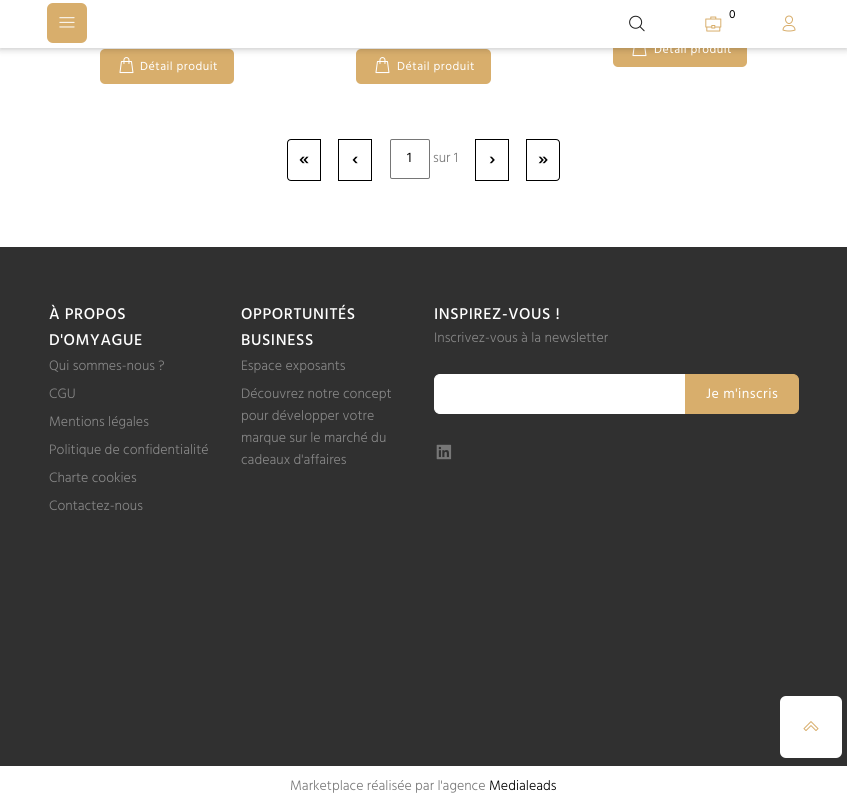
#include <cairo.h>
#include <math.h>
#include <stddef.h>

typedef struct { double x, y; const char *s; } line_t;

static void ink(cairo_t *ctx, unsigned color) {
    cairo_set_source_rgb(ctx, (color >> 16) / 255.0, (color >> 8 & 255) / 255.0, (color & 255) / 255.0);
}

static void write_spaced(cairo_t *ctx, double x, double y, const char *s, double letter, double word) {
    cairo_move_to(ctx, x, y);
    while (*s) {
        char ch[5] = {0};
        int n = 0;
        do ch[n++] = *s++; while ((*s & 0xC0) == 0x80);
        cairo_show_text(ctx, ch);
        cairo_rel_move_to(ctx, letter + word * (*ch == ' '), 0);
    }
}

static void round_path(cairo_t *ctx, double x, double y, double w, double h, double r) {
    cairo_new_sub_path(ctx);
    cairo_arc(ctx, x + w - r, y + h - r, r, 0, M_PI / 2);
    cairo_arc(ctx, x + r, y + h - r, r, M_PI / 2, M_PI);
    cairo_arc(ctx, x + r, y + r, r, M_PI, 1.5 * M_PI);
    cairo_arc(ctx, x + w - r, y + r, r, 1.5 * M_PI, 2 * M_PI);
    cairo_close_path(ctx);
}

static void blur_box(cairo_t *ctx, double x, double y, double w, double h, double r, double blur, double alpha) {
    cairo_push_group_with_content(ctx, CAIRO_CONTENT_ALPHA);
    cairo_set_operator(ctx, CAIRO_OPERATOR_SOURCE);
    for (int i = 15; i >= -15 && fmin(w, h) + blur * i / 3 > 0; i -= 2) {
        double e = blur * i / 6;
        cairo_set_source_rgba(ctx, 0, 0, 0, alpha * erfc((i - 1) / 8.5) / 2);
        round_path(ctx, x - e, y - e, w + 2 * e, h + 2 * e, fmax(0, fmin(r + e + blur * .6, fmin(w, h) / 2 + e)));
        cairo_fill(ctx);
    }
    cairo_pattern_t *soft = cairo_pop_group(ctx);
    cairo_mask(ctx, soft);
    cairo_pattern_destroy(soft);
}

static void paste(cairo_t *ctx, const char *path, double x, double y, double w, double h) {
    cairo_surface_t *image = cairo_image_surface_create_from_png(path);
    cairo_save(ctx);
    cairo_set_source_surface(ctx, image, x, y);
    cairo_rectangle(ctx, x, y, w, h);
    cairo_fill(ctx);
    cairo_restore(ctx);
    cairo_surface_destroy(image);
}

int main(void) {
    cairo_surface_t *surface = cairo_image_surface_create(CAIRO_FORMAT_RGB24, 847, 808);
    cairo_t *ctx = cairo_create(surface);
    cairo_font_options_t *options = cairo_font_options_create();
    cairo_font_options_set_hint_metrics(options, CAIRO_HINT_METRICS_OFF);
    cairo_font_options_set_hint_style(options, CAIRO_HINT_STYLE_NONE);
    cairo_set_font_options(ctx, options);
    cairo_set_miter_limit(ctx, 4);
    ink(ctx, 0xFFFFFF);
    cairo_paint(ctx);
    ink(ctx, 0xD8AE6C);
    round_path(ctx, 613, 32, 134, 35, 5);
    cairo_fill(ctx);
    paste(ctx, "media/5.png", 632, 48, 15, 9);
    round_path(ctx, 100, 49, 134, 35, 5);
    cairo_fill(ctx);
    paste(ctx, "media/6.png", 119, 57, 15, 17);
    round_path(ctx, 356, 49, 135, 35, 5);
    cairo_fill(ctx);
    paste(ctx, "media/6.png", 375, 57, 15, 17);
    ink(ctx, 0x000000);
    blur_box(ctx, 0, 0, 847, 48, 0, 4, 0.3);
    ink(ctx, 0xFFFFFF);
    cairo_rectangle(ctx, 0, 0, 847, 48);
    cairo_fill(ctx);
    ink(ctx, 0xD8AE6C);
    round_path(ctx, 47, 3, 40, 40, 6);
    cairo_fill(ctx);
    paste(ctx, "media/1.png", 59, 17, 16, 11);
    paste(ctx, "media/2.png", 629, 15, 16, 17);
    cairo_select_font_face(ctx, "Hind", CAIRO_FONT_SLANT_NORMAL, CAIRO_FONT_WEIGHT_NORMAL);
    cairo_set_font_size(ctx, 12);
    ink(ctx, 0x000000);
    cairo_move_to(ctx, 729, 18);
    cairo_show_text(ctx, "0");
    paste(ctx, "media/3.png", 705, 16, 17, 16);
    paste(ctx, "media/4.png", 782, 15, 14, 17);
    ink(ctx, 0xFFFFFF);
    {
        static const line_t items[] = {
            {654, 53, "Détail produit"},
            {140, 70, "Détail produit"},
            {397, 70, "Détail produit"},
        };
        for (size_t i = 0; i < sizeof items / sizeof *items; i++) {
            write_spaced(ctx, items[i].x, items[i].y, items[i].s, 0.5, 0);
        }
    }
    cairo_new_path(ctx);
    cairo_move_to(ctx, 291, 139.5);
    cairo_line_to(ctx, 320.5, 139.5);
    cairo_line_to(ctx, 320.5, 180.5);
    cairo_line_to(ctx, 291, 180.5);
    cairo_curve_to(ctx, 289, 180.5, 287.5, 179, 287.5, 177);
    cairo_line_to(ctx, 287.5, 143);
    cairo_curve_to(ctx, 287.5, 141, 289, 139.5, 291, 139.5);
    cairo_close_path(ctx);
    ink(ctx, 0x000000);
    cairo_set_line_width(ctx, 1);
    cairo_stroke(ctx);
    cairo_select_font_face(ctx, "Hind Medium", CAIRO_FONT_SLANT_NORMAL, CAIRO_FONT_WEIGHT_NORMAL);
    cairo_set_font_size(ctx, 20);
    cairo_move_to(ctx, 299, 165);
    cairo_show_text(ctx, "«");
    cairo_rectangle(ctx, 338.5, 139.5, 33, 41);
    cairo_stroke(ctx);
    cairo_move_to(ctx, 352, 165);
    cairo_show_text(ctx, "‹");
    round_path(ctx, 390.5, 139.5, 39, 39, 1.5);
    ink(ctx, 0x767676);
    cairo_stroke(ctx);
    cairo_select_font_face(ctx, "Hind", CAIRO_FONT_SLANT_NORMAL, CAIRO_FONT_WEIGHT_NORMAL);
    cairo_set_font_size(ctx, 14);
    ink(ctx, 0x000000);
    cairo_move_to(ctx, 407, 162);
    cairo_show_text(ctx, "1");
    cairo_select_font_face(ctx, "Hind Light", CAIRO_FONT_SLANT_NORMAL, CAIRO_FONT_WEIGHT_NORMAL);
    ink(ctx, 0x777777);
    cairo_move_to(ctx, 433, 162);
    cairo_show_text(ctx, "sur 1");
    cairo_rectangle(ctx, 475.5, 139.5, 33, 41);
    ink(ctx, 0x000000);
    cairo_stroke(ctx);
    cairo_select_font_face(ctx, "Hind Medium", CAIRO_FONT_SLANT_NORMAL, CAIRO_FONT_WEIGHT_NORMAL);
    cairo_set_font_size(ctx, 20);
    cairo_move_to(ctx, 489, 165);
    cairo_show_text(ctx, "›");
    cairo_new_path(ctx);
    cairo_move_to(ctx, 526.5, 139.5);
    cairo_line_to(ctx, 556, 139.5);
    cairo_curve_to(ctx, 558, 139.5, 559.5, 141, 559.5, 143);
    cairo_line_to(ctx, 559.5, 177);
    cairo_curve_to(ctx, 559.5, 179, 558, 180.5, 556, 180.5);
    cairo_line_to(ctx, 526.5, 180.5);
    cairo_close_path(ctx);
    cairo_stroke(ctx);
    cairo_move_to(ctx, 538, 165);
    cairo_show_text(ctx, "»");
    ink(ctx, 0x303030);
    cairo_rectangle(ctx, 0, 247, 847, 519);
    cairo_fill(ctx);
    cairo_set_font_size(ctx, 16);
    ink(ctx, 0xFFFFFF);
    write_spaced(ctx, 49, 319, "À PROPOS", 0.6, 0);
    write_spaced(ctx, 49, 345, "D'OMYAGUE", 0.6, 0);
    cairo_select_font_face(ctx, "Hind Light", CAIRO_FONT_SLANT_NORMAL, CAIRO_FONT_WEIGHT_NORMAL);
    cairo_set_font_size(ctx, 14);
    ink(ctx, 0x888888);
    {
        static const line_t items[] = {
            {49, 370, "Qui sommes-nous ?"},
            {49, 398, "CGU"},
            {49, 426, "Mentions légales"},
            {49, 454, "Politique de confidentialité"},
            {49, 482, "Charte cookies"},
            {49, 510, "Contactez-nous"},
        };
        for (size_t i = 0; i < sizeof items / sizeof *items; i++) {
            cairo_move_to(ctx, items[i].x, items[i].y);
            cairo_show_text(ctx, items[i].s);
        }
    }
    cairo_select_font_face(ctx, "Hind Medium", CAIRO_FONT_SLANT_NORMAL, CAIRO_FONT_WEIGHT_NORMAL);
    cairo_set_font_size(ctx, 16);
    ink(ctx, 0xFFFFFF);
    write_spaced(ctx, 241, 319, "OPPORTUNITÉS", 0.6, 0);
    write_spaced(ctx, 241, 345, "BUSINESS", 0.6, 0);
    cairo_select_font_face(ctx, "Hind Light", CAIRO_FONT_SLANT_NORMAL, CAIRO_FONT_WEIGHT_NORMAL);
    cairo_set_font_size(ctx, 14);
    ink(ctx, 0x888888);
    {
        static const line_t items[] = {
            {241, 370, "Espace exposants"},
            {241, 398, "Découvrez notre concept"},
            {241, 420, "pour développer votre"},
            {241, 442, "marque sur le marché du"},
            {241, 464, "cadeaux d'affaires"},
        };
        for (size_t i = 0; i < sizeof items / sizeof *items; i++) {
            cairo_move_to(ctx, items[i].x, items[i].y);
            cairo_show_text(ctx, items[i].s);
        }
    }
    cairo_select_font_face(ctx, "Hind Medium", CAIRO_FONT_SLANT_NORMAL, CAIRO_FONT_WEIGHT_NORMAL);
    cairo_set_font_size(ctx, 16);
    ink(ctx, 0xFFFFFF);
    write_spaced(ctx, 434, 319, "INSPIREZ-VOUS !", 0.6, 0);
    cairo_select_font_face(ctx, "Hind Light", CAIRO_FONT_SLANT_NORMAL, CAIRO_FONT_WEIGHT_NORMAL);
    cairo_set_font_size(ctx, 14);
    ink(ctx, 0x888888);
    cairo_move_to(ctx, 434, 342);
    cairo_show_text(ctx, "Inscrivez-vous à la newsletter");
    ink(ctx, 0xFFFFFF);
    cairo_new_path(ctx);
    cairo_move_to(ctx, 440, 374.5);
    cairo_line_to(ctx, 684.5, 374.5);
    cairo_line_to(ctx, 684.5, 413.5);
    cairo_line_to(ctx, 440, 413.5);
    cairo_curve_to(ctx, 437, 413.5, 434.5, 411, 434.5, 408);
    cairo_line_to(ctx, 434.5, 380);
    cairo_curve_to(ctx, 434.5, 377, 437, 374.5, 440, 374.5);
    cairo_close_path(ctx);
    cairo_fill_preserve(ctx);
    cairo_stroke(ctx);
    ink(ctx, 0xD8AE6C);
    cairo_new_path(ctx);
    cairo_move_to(ctx, 685.5, 374.5);
    cairo_line_to(ctx, 793, 374.5);
    cairo_curve_to(ctx, 796, 374.5, 798.5, 377, 798.5, 380);
    cairo_line_to(ctx, 798.5, 408);
    cairo_curve_to(ctx, 798.5, 411, 796, 413.5, 793, 413.5);
    cairo_line_to(ctx, 685.5, 413.5);
    cairo_close_path(ctx);
    cairo_fill_preserve(ctx);
    cairo_stroke(ctx);
    cairo_select_font_face(ctx, "Hind", CAIRO_FONT_SLANT_NORMAL, CAIRO_FONT_WEIGHT_NORMAL);
    ink(ctx, 0xFFFFFF);
    write_spaced(ctx, 706, 398, "Je m'inscris", 0.5, 0);
    paste(ctx, "media/7.png", 436, 444, 16, 16);
    cairo_select_font_face(ctx, "Hind Light", CAIRO_FONT_SLANT_NORMAL, CAIRO_FONT_WEIGHT_NORMAL);
    ink(ctx, 0x777777);
    cairo_move_to(ctx, 290, 790);
    cairo_show_text(ctx, "Marketplace réalisée par l'agence");
    ink(ctx, 0x000000);
    cairo_move_to(ctx, 489, 790);
    cairo_show_text(ctx, "Medialeads");
    ink(ctx, 0xFFFFFF);
    round_path(ctx, 780, 696, 62, 62, 6);
    cairo_fill(ctx);
    paste(ctx, "media/8.png", 803, 721, 16, 10);
    cairo_surface_write_to_png(surface, "image.png");
    cairo_font_options_destroy(options);
    cairo_destroy(ctx);
    cairo_surface_destroy(surface);
    return 0;
}
